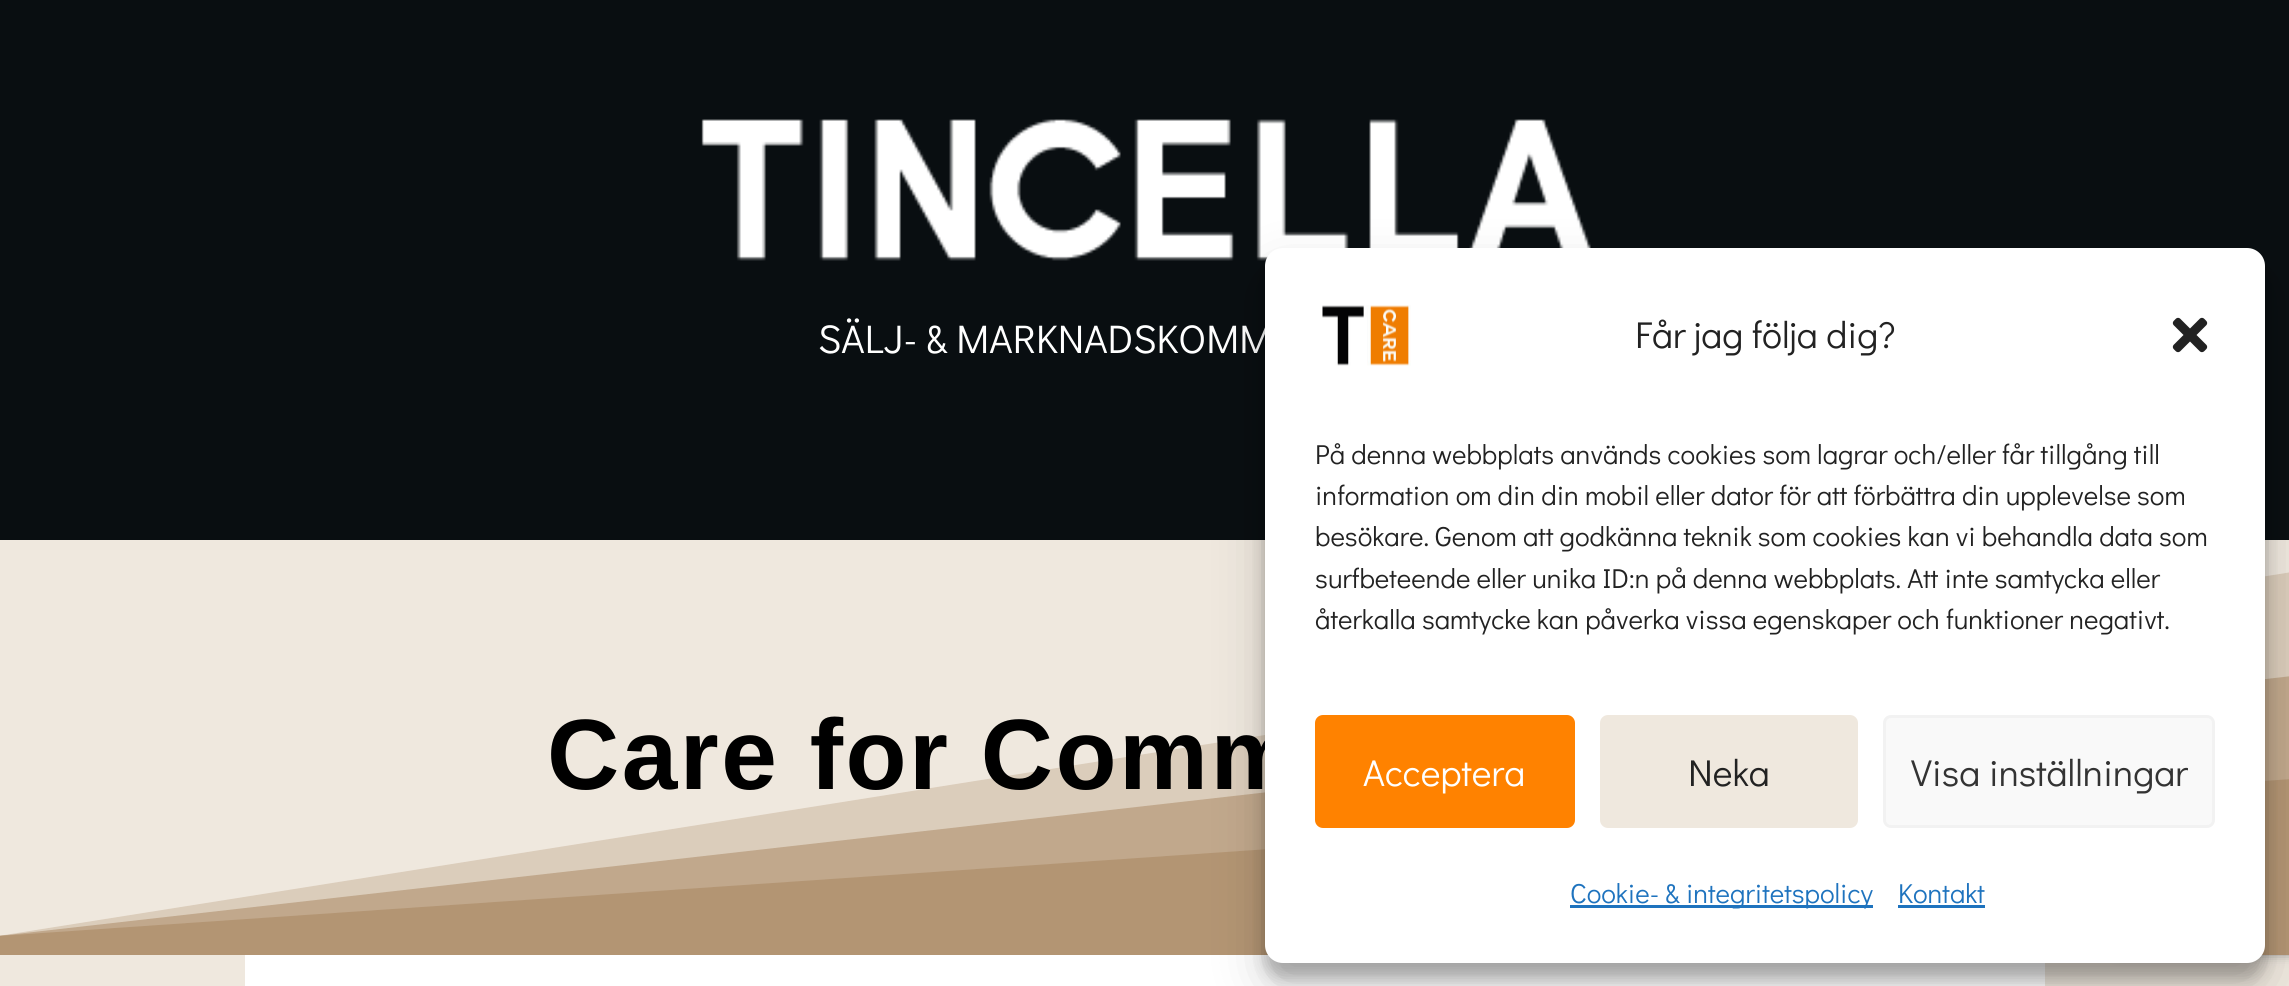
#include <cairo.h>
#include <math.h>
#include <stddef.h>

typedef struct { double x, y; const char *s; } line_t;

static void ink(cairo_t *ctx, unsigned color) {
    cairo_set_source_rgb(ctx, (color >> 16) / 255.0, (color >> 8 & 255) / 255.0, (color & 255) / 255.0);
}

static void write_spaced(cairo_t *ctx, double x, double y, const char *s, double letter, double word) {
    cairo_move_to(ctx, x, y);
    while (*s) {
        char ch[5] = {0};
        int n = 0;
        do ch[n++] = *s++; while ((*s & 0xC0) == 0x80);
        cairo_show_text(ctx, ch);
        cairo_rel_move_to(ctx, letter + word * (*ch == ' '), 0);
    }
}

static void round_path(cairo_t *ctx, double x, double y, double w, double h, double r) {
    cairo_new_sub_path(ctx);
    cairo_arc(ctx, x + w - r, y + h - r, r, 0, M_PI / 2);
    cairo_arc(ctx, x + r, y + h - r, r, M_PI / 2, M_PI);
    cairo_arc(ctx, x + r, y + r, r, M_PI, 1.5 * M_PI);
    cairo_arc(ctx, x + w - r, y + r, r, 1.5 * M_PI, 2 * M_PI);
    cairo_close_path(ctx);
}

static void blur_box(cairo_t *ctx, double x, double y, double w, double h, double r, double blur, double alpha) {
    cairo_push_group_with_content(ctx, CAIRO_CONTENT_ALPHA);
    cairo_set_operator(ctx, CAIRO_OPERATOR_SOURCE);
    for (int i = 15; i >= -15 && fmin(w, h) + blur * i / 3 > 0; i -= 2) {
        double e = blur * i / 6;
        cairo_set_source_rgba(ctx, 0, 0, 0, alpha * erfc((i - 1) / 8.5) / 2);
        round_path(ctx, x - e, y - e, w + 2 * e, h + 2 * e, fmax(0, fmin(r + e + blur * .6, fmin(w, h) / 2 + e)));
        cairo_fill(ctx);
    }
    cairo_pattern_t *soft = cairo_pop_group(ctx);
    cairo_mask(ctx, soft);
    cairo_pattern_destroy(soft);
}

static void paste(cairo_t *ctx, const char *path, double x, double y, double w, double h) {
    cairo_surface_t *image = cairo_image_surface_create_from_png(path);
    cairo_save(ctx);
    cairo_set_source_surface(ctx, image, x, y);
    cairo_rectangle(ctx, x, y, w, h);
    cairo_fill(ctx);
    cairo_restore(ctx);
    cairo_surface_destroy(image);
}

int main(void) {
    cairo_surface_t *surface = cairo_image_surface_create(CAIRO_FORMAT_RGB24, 2289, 986);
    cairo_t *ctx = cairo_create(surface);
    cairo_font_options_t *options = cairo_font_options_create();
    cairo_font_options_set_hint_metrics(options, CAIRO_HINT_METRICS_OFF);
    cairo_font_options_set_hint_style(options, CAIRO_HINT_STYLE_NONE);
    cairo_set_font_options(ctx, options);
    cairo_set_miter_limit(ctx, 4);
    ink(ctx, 0xEFE8DE);
    cairo_paint(ctx);
    ink(ctx, 0x090E11);
    cairo_rectangle(ctx, 0, 0, 2289, 540);
    cairo_fill(ctx);
    paste(ctx, "media/1.png", 701, 119, 890, 142);
    cairo_select_font_face(ctx, "Didact Gothic", CAIRO_FONT_SLANT_NORMAL, CAIRO_FONT_WEIGHT_NORMAL);
    cairo_set_font_size(ctx, 40);
    ink(ctx, 0xFFFFFF);
    cairo_move_to(ctx, 818, 353);
    cairo_show_text(ctx, "SÄLJ- & MARKNADSKOMM");
    cairo_rectangle(ctx, 245, 955, 1800, 31);
    cairo_fill(ctx);
    ink(ctx, 0x808080);
    blur_box(ctx, 2115, 803, 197, 150, 5, 6, 1);
    cairo_set_source_rgba(ctx, 0.702, 0.584, 0.451, 0.33);
    cairo_new_path(ctx);
    cairo_move_to(ctx, -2, 936);
    cairo_line_to(ctx, 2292, 572);
    cairo_line_to(ctx, 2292, 955);
    cairo_line_to(ctx, -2, 955);
    cairo_close_path(ctx);
    cairo_fill(ctx);
    cairo_set_source_rgba(ctx, 0.702, 0.584, 0.451, 0.66);
    cairo_new_path(ctx);
    cairo_move_to(ctx, -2, 936);
    cairo_line_to(ctx, 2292, 676);
    cairo_line_to(ctx, 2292, 955);
    cairo_line_to(ctx, -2, 955);
    cairo_close_path(ctx);
    cairo_fill(ctx);
    ink(ctx, 0xB39573);
    cairo_new_path(ctx);
    cairo_move_to(ctx, -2, 936);
    cairo_line_to(ctx, 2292, 779);
    cairo_line_to(ctx, 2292, 955);
    cairo_line_to(ctx, -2, 955);
    cairo_close_path(ctx);
    cairo_fill(ctx);
    cairo_select_font_face(ctx, "Liberation Sans", CAIRO_FONT_SLANT_NORMAL, CAIRO_FONT_WEIGHT_BOLD);
    cairo_set_font_size(ctx, 100);
    ink(ctx, 0x000000);
    write_spaced(ctx, 547, 789, "Care for Comm", 2.5, 0);
    ink(ctx, 0x000000);
    blur_box(ctx, 1265, 263, 1000, 715, 18, 7.5, 0.23);
    blur_box(ctx, 1265, 273, 1000, 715, 18, 25, 0.19);
    ink(ctx, 0xFFFFFF);
    round_path(ctx, 1265, 248, 1000, 715, 18);
    cairo_fill(ctx);
    paste(ctx, "media/2.png", 1322, 305, 89, 61);
    cairo_select_font_face(ctx, "Didact Gothic", CAIRO_FONT_SLANT_NORMAL, CAIRO_FONT_WEIGHT_NORMAL);
    cairo_set_font_size(ctx, 37.5);
    ink(ctx, 0x222222);
    cairo_move_to(ctx, 1635, 348);
    cairo_show_text(ctx, "Får jag följa dig?");
    paste(ctx, "media/3.png", 2172, 317, 36, 36);
    cairo_set_font_size(ctx, 27.5);
    {
        static const line_t items[] = {
            {1315, 464, "På denna webbplats används cookies som lagrar och/eller får tillgång till"},
            {1315, 505, "information om din din mobil eller dator för att förbättra din upplevelse som"},
            {1315, 546, "besökare. Genom att godkänna teknik som cookies kan vi behandla data som"},
            {1315, 588, "surfbeteende eller unika ID:n på denna webbplats. Att inte samtycka eller"},
            {1315, 629, "återkalla samtycke kan påverka vissa egenskaper och funktioner negativt."},
        };
        for (size_t i = 0; i < sizeof items / sizeof *items; i++) {
            cairo_move_to(ctx, items[i].x, items[i].y);
            cairo_show_text(ctx, items[i].s);
        }
    }
    ink(ctx, 0xFF8200);
    round_path(ctx, 1316.5, 716.5, 257, 110, 6.5);
    cairo_fill_preserve(ctx);
    cairo_set_line_width(ctx, 3);
    cairo_stroke(ctx);
    cairo_set_font_size(ctx, 37.5);
    ink(ctx, 0xFFFFFF);
    cairo_move_to(ctx, 1363, 786);
    cairo_show_text(ctx, "Acceptera");
    ink(ctx, 0xEFE8DE);
    round_path(ctx, 1601.5, 716.5, 255, 110, 6.5);
    cairo_fill_preserve(ctx);
    cairo_stroke(ctx);
    ink(ctx, 0x222222);
    cairo_move_to(ctx, 1688, 786);
    cairo_show_text(ctx, "Neka");
    ink(ctx, 0xF9F9F9);
    round_path(ctx, 1884.5, 716.5, 329, 110, 6.5);
    cairo_fill_preserve(ctx);
    ink(ctx, 0xF2F2F2);
    cairo_stroke(ctx);
    ink(ctx, 0x333333);
    cairo_move_to(ctx, 1911, 786);
    cairo_show_text(ctx, "Visa inställningar");
    ink(ctx, 0x1E73BE);
    cairo_rectangle(ctx, 1570, 905, 303, 3);
    cairo_fill(ctx);
    cairo_set_font_size(ctx, 27.5);
    cairo_move_to(ctx, 1570, 903);
    cairo_show_text(ctx, "Cookie- & integritetspolicy");
    cairo_move_to(ctx, 1898, 903);
    cairo_show_text(ctx, "Kontakt");
    cairo_rectangle(ctx, 1898, 905, 87, 3);
    cairo_fill(ctx);
    cairo_surface_write_to_png(surface, "image.png");
    cairo_font_options_destroy(options);
    cairo_destroy(ctx);
    cairo_surface_destroy(surface);
    return 0;
}
